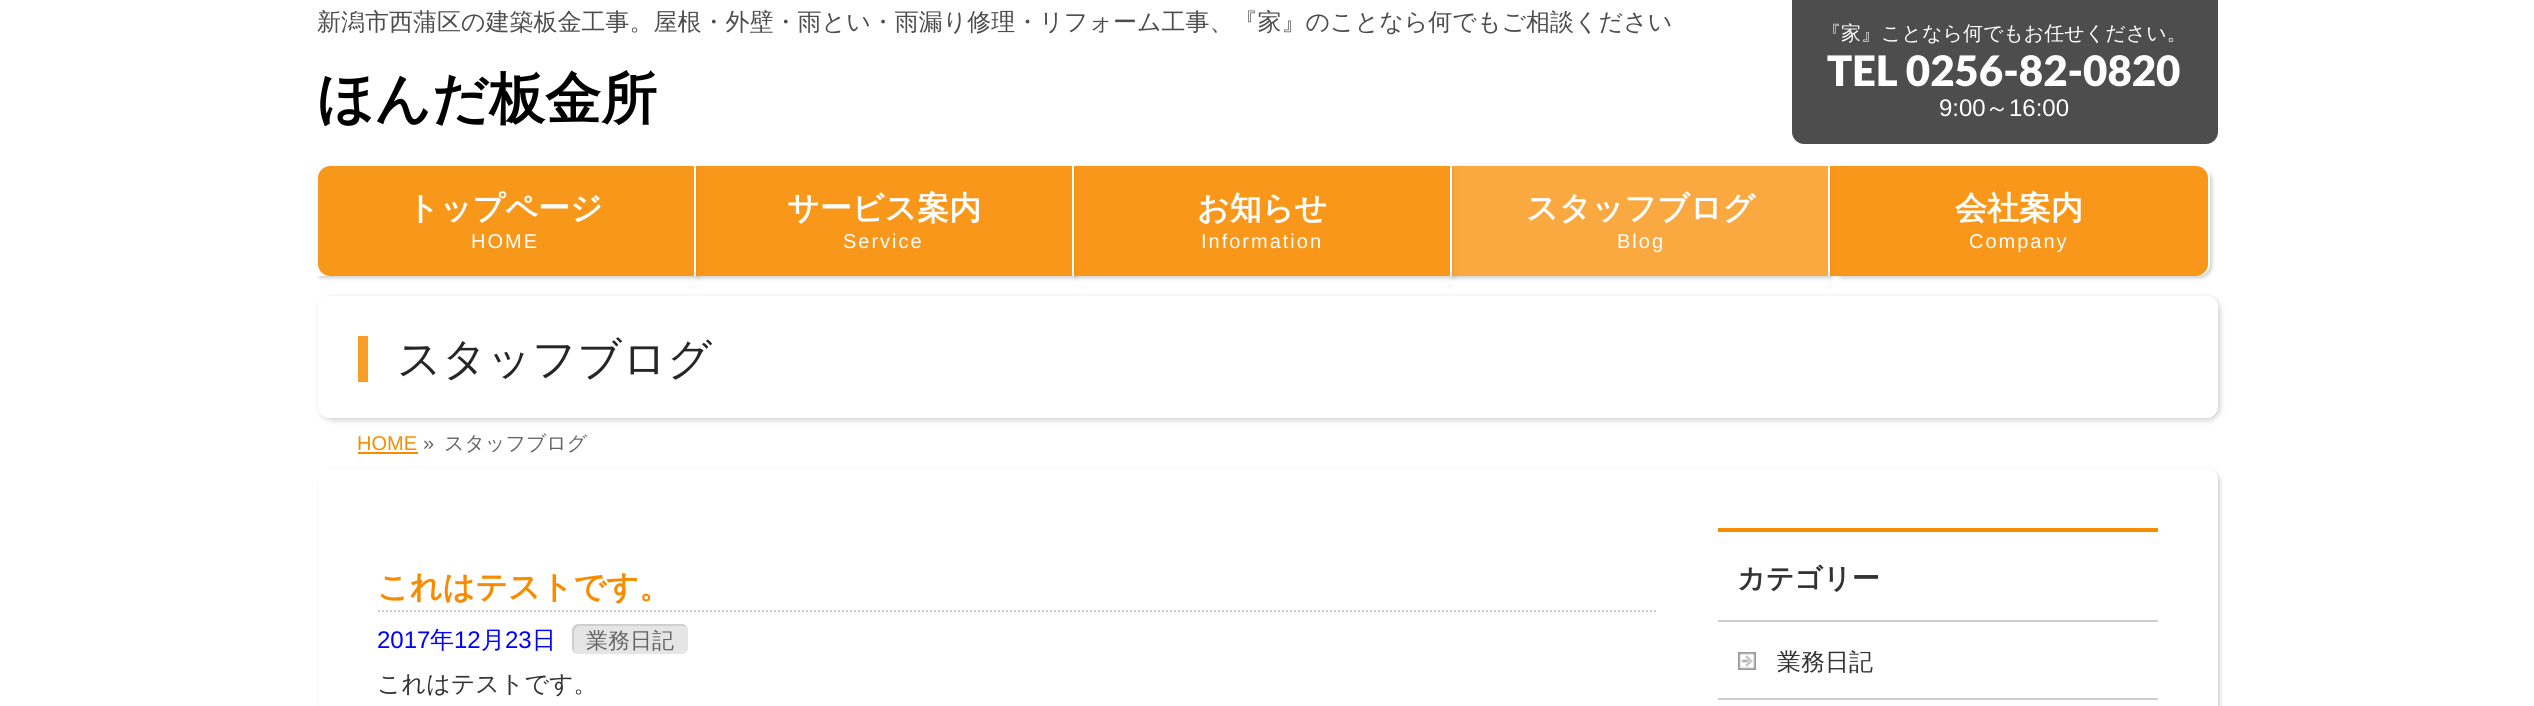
#include <cairo.h>
#include <math.h>
#include <stddef.h>


static void ink(cairo_t *ctx, unsigned color) {
    cairo_set_source_rgb(ctx, (color >> 16) / 255.0, (color >> 8 & 255) / 255.0, (color & 255) / 255.0);
}

static void write_spaced(cairo_t *ctx, double x, double y, const char *s, double letter, double word) {
    cairo_move_to(ctx, x, y);
    while (*s) {
        char ch[5] = {0};
        int n = 0;
        do ch[n++] = *s++; while ((*s & 0xC0) == 0x80);
        cairo_show_text(ctx, ch);
        cairo_rel_move_to(ctx, letter + word * (*ch == ' '), 0);
    }
}

static void round_path(cairo_t *ctx, double x, double y, double w, double h, double r) {
    cairo_new_sub_path(ctx);
    cairo_arc(ctx, x + w - r, y + h - r, r, 0, M_PI / 2);
    cairo_arc(ctx, x + r, y + h - r, r, M_PI / 2, M_PI);
    cairo_arc(ctx, x + r, y + r, r, M_PI, 1.5 * M_PI);
    cairo_arc(ctx, x + w - r, y + r, r, 1.5 * M_PI, 2 * M_PI);
    cairo_close_path(ctx);
}

static void blur_box(cairo_t *ctx, double x, double y, double w, double h, double r, double blur, double alpha) {
    cairo_push_group_with_content(ctx, CAIRO_CONTENT_ALPHA);
    cairo_set_operator(ctx, CAIRO_OPERATOR_SOURCE);
    for (int i = 15; i >= -15 && fmin(w, h) + blur * i / 3 > 0; i -= 2) {
        double e = blur * i / 6;
        cairo_set_source_rgba(ctx, 0, 0, 0, alpha * erfc((i - 1) / 8.5) / 2);
        round_path(ctx, x - e, y - e, w + 2 * e, h + 2 * e, fmax(0, fmin(r + e + blur * .6, fmin(w, h) / 2 + e)));
        cairo_fill(ctx);
    }
    cairo_pattern_t *soft = cairo_pop_group(ctx);
    cairo_mask(ctx, soft);
    cairo_pattern_destroy(soft);
}

static void paste(cairo_t *ctx, const char *path, double x, double y, double w, double h) {
    cairo_surface_t *image = cairo_image_surface_create_from_png(path);
    cairo_save(ctx);
    cairo_set_source_surface(ctx, image, x, y);
    cairo_rectangle(ctx, x, y, w, h);
    cairo_fill(ctx);
    cairo_restore(ctx);
    cairo_surface_destroy(image);
}

int main(void) {
    cairo_surface_t *surface = cairo_image_surface_create(CAIRO_FORMAT_RGB24, 2534, 706);
    cairo_t *ctx = cairo_create(surface);
    cairo_font_options_t *options = cairo_font_options_create();
    cairo_font_options_set_hint_metrics(options, CAIRO_HINT_METRICS_OFF);
    cairo_font_options_set_hint_style(options, CAIRO_HINT_STYLE_NONE);
    cairo_set_font_options(ctx, options);
    cairo_set_miter_limit(ctx, 4);
    ink(ctx, 0xFFFFFF);
    cairo_paint(ctx);
    cairo_select_font_face(ctx, "WenQuanYi Zen Hei Medium", CAIRO_FONT_SLANT_NORMAL, CAIRO_FONT_WEIGHT_NORMAL);
    cairo_set_font_size(ctx, 24);
    ink(ctx, 0x4D4D4D);
    cairo_move_to(ctx, 317, 30);
    cairo_show_text(ctx, "新潟市西蒲区の建築板金工事。屋根・外壁・雨とい・雨漏り修理・リフォーム工事、『家』のことなら何でもご相談ください");
    cairo_select_font_face(ctx, "WenQuanYi Zen Hei", CAIRO_FONT_SLANT_NORMAL, CAIRO_FONT_WEIGHT_BOLD);
    cairo_set_font_size(ctx, 56);
    ink(ctx, 0x000000);
    cairo_move_to(ctx, 317, 118);
    cairo_show_text(ctx, "ほんだ板金所");
    ink(ctx, 0x4D4D4D);
    cairo_new_path(ctx);
    cairo_move_to(ctx, 1792, 0);
    cairo_line_to(ctx, 2218, 0);
    cairo_line_to(ctx, 2218, 132);
    cairo_curve_to(ctx, 2218, 138.5, 2212.5, 144, 2206, 144);
    cairo_line_to(ctx, 1804, 144);
    cairo_curve_to(ctx, 1797.5, 144, 1792, 138.5, 1792, 132);
    cairo_close_path(ctx);
    cairo_fill(ctx);
    cairo_select_font_face(ctx, "WenQuanYi Zen Hei Medium", CAIRO_FONT_SLANT_NORMAL, CAIRO_FONT_WEIGHT_NORMAL);
    cairo_set_font_size(ctx, 20);
    ink(ctx, 0xFFFFFF);
    cairo_move_to(ctx, 1821, 40);
    cairo_show_text(ctx, "『家』ことなら何でもお任せください。");
    cairo_select_font_face(ctx, "Lato Black", CAIRO_FONT_SLANT_NORMAL, CAIRO_FONT_WEIGHT_NORMAL);
    cairo_set_font_size(ctx, 42);
    cairo_move_to(ctx, 1827, 86);
    cairo_show_text(ctx, "TEL 0256-82-0820");
    cairo_select_font_face(ctx, "Liberation Sans", CAIRO_FONT_SLANT_NORMAL, CAIRO_FONT_WEIGHT_NORMAL);
    cairo_set_font_size(ctx, 24);
    cairo_move_to(ctx, 1939, 116);
    cairo_show_text(ctx, "9:00");
    cairo_select_font_face(ctx, "WenQuanYi Zen Hei Medium", CAIRO_FONT_SLANT_NORMAL, CAIRO_FONT_WEIGHT_NORMAL);
    cairo_move_to(ctx, 1985, 116);
    cairo_show_text(ctx, "～");
    cairo_select_font_face(ctx, "Liberation Sans", CAIRO_FONT_SLANT_NORMAL, CAIRO_FONT_WEIGHT_NORMAL);
    cairo_move_to(ctx, 2009, 116);
    cairo_show_text(ctx, "16:00");
    cairo_save(ctx);
    cairo_set_fill_rule(ctx, CAIRO_FILL_RULE_EVEN_ODD);
    cairo_new_path(ctx);
    cairo_move_to(ctx, 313, 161);
    cairo_line_to(ctx, 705, 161);
    cairo_line_to(ctx, 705, 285);
    cairo_line_to(ctx, 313, 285);
    cairo_close_path(ctx);
    cairo_move_to(ctx, 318, 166);
    cairo_line_to(ctx, 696, 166);
    cairo_line_to(ctx, 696, 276);
    cairo_line_to(ctx, 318, 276);
    cairo_close_path(ctx);
    cairo_clip(ctx);
    ink(ctx, 0x000000);
    blur_box(ctx, 320, 168, 378, 110, 0, 2, 0.2);
    cairo_restore(ctx);
    ink(ctx, 0xF8981A);
    cairo_new_path(ctx);
    cairo_move_to(ctx, 330, 166);
    cairo_line_to(ctx, 694, 166);
    cairo_line_to(ctx, 694, 276);
    cairo_line_to(ctx, 330, 276);
    cairo_curve_to(ctx, 323.5, 276, 318, 270.5, 318, 264);
    cairo_line_to(ctx, 318, 178);
    cairo_curve_to(ctx, 318, 171.5, 323.5, 166, 330, 166);
    cairo_close_path(ctx);
    cairo_fill(ctx);
    cairo_select_font_face(ctx, "WenQuanYi Zen Hei", CAIRO_FONT_SLANT_NORMAL, CAIRO_FONT_WEIGHT_BOLD);
    cairo_set_font_size(ctx, 32);
    ink(ctx, 0xFFFFFF);
    cairo_move_to(ctx, 407, 219);
    cairo_show_text(ctx, "トップページ");
    cairo_select_font_face(ctx, "Liberation Sans", CAIRO_FONT_SLANT_NORMAL, CAIRO_FONT_WEIGHT_NORMAL);
    cairo_set_font_size(ctx, 20);
    write_spaced(ctx, 471, 248, "HOME", 2, 0);
    cairo_save(ctx);
    cairo_set_fill_rule(ctx, CAIRO_FILL_RULE_EVEN_ODD);
    cairo_new_path(ctx);
    cairo_move_to(ctx, 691, 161);
    cairo_line_to(ctx, 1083, 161);
    cairo_line_to(ctx, 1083, 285);
    cairo_line_to(ctx, 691, 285);
    cairo_close_path(ctx);
    cairo_move_to(ctx, 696, 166);
    cairo_line_to(ctx, 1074, 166);
    cairo_line_to(ctx, 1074, 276);
    cairo_line_to(ctx, 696, 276);
    cairo_close_path(ctx);
    cairo_clip(ctx);
    ink(ctx, 0x000000);
    blur_box(ctx, 698, 168, 378, 110, 0, 2, 0.2);
    cairo_restore(ctx);
    cairo_set_source_rgba(ctx, 0.969, 0.549, 0, 0.9);
    cairo_rectangle(ctx, 696, 166, 376, 110);
    cairo_fill(ctx);
    cairo_select_font_face(ctx, "WenQuanYi Zen Hei", CAIRO_FONT_SLANT_NORMAL, CAIRO_FONT_WEIGHT_BOLD);
    cairo_set_font_size(ctx, 32);
    ink(ctx, 0xFFFFFF);
    cairo_move_to(ctx, 787, 219);
    cairo_show_text(ctx, "サービス案内");
    cairo_select_font_face(ctx, "Liberation Sans", CAIRO_FONT_SLANT_NORMAL, CAIRO_FONT_WEIGHT_NORMAL);
    cairo_set_font_size(ctx, 20);
    write_spaced(ctx, 843, 248, "Service", 2, 0);
    cairo_save(ctx);
    cairo_set_fill_rule(ctx, CAIRO_FILL_RULE_EVEN_ODD);
    cairo_new_path(ctx);
    cairo_move_to(ctx, 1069, 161);
    cairo_line_to(ctx, 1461, 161);
    cairo_line_to(ctx, 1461, 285);
    cairo_line_to(ctx, 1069, 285);
    cairo_close_path(ctx);
    cairo_move_to(ctx, 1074, 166);
    cairo_line_to(ctx, 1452, 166);
    cairo_line_to(ctx, 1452, 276);
    cairo_line_to(ctx, 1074, 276);
    cairo_close_path(ctx);
    cairo_clip(ctx);
    ink(ctx, 0x000000);
    blur_box(ctx, 1076, 168, 378, 110, 0, 2, 0.2);
    cairo_restore(ctx);
    cairo_set_source_rgba(ctx, 0.969, 0.549, 0, 0.9);
    cairo_rectangle(ctx, 1074, 166, 376, 110);
    cairo_fill(ctx);
    cairo_select_font_face(ctx, "WenQuanYi Zen Hei", CAIRO_FONT_SLANT_NORMAL, CAIRO_FONT_WEIGHT_BOLD);
    cairo_set_font_size(ctx, 32);
    ink(ctx, 0xFFFFFF);
    cairo_move_to(ctx, 1197, 219);
    cairo_show_text(ctx, "お知らせ");
    cairo_select_font_face(ctx, "Liberation Sans", CAIRO_FONT_SLANT_NORMAL, CAIRO_FONT_WEIGHT_NORMAL);
    cairo_set_font_size(ctx, 20);
    write_spaced(ctx, 1201, 248, "Information", 2, 0);
    cairo_save(ctx);
    cairo_set_fill_rule(ctx, CAIRO_FILL_RULE_EVEN_ODD);
    cairo_new_path(ctx);
    cairo_move_to(ctx, 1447, 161);
    cairo_line_to(ctx, 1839, 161);
    cairo_line_to(ctx, 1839, 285);
    cairo_line_to(ctx, 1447, 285);
    cairo_close_path(ctx);
    cairo_move_to(ctx, 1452, 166);
    cairo_line_to(ctx, 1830, 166);
    cairo_line_to(ctx, 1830, 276);
    cairo_line_to(ctx, 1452, 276);
    cairo_close_path(ctx);
    cairo_clip(ctx);
    ink(ctx, 0x000000);
    blur_box(ctx, 1454, 168, 378, 110, 0, 2, 0.2);
    cairo_restore(ctx);
    cairo_set_source_rgba(ctx, 0.969, 0.549, 0, 0.75);
    cairo_rectangle(ctx, 1452, 166, 376, 110);
    cairo_fill(ctx);
    cairo_select_font_face(ctx, "WenQuanYi Zen Hei", CAIRO_FONT_SLANT_NORMAL, CAIRO_FONT_WEIGHT_BOLD);
    cairo_set_font_size(ctx, 32);
    ink(ctx, 0xFFFFFF);
    cairo_move_to(ctx, 1526, 219);
    cairo_show_text(ctx, "スタッフブログ");
    cairo_select_font_face(ctx, "Liberation Sans", CAIRO_FONT_SLANT_NORMAL, CAIRO_FONT_WEIGHT_NORMAL);
    cairo_set_font_size(ctx, 20);
    write_spaced(ctx, 1617, 248, "Blog", 2, 0);
    cairo_save(ctx);
    cairo_set_fill_rule(ctx, CAIRO_FILL_RULE_EVEN_ODD);
    cairo_new_path(ctx);
    cairo_move_to(ctx, 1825, 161);
    cairo_line_to(ctx, 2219, 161);
    cairo_line_to(ctx, 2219, 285);
    cairo_line_to(ctx, 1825, 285);
    cairo_close_path(ctx);
    cairo_move_to(ctx, 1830, 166);
    cairo_line_to(ctx, 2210, 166);
    cairo_line_to(ctx, 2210, 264);
    cairo_curve_to(ctx, 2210, 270.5, 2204.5, 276, 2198, 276);
    cairo_line_to(ctx, 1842, 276);
    cairo_curve_to(ctx, 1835.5, 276, 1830, 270.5, 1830, 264);
    cairo_close_path(ctx);
    cairo_clip(ctx);
    ink(ctx, 0x000000);
    blur_box(ctx, 1832, 168, 380, 110, 12, 2, 0.2);
    cairo_restore(ctx);
    cairo_set_source_rgba(ctx, 0.969, 0.549, 0, 0.9);
    cairo_new_path(ctx);
    cairo_move_to(ctx, 1830, 166);
    cairo_line_to(ctx, 2196, 166);
    cairo_curve_to(ctx, 2202.5, 166, 2208, 171.5, 2208, 178);
    cairo_line_to(ctx, 2208, 264);
    cairo_curve_to(ctx, 2208, 270.5, 2202.5, 276, 2196, 276);
    cairo_line_to(ctx, 1830, 276);
    cairo_close_path(ctx);
    cairo_fill(ctx);
    cairo_select_font_face(ctx, "WenQuanYi Zen Hei", CAIRO_FONT_SLANT_NORMAL, CAIRO_FONT_WEIGHT_BOLD);
    cairo_set_font_size(ctx, 32);
    ink(ctx, 0xFFFFFF);
    cairo_move_to(ctx, 1955, 219);
    cairo_show_text(ctx, "会社案内");
    cairo_select_font_face(ctx, "Liberation Sans", CAIRO_FONT_SLANT_NORMAL, CAIRO_FONT_WEIGHT_NORMAL);
    cairo_set_font_size(ctx, 20);
    write_spaced(ctx, 1969, 248, "Company", 2, 0);
    cairo_save(ctx);
    cairo_set_fill_rule(ctx, CAIRO_FILL_RULE_EVEN_ODD);
    cairo_new_path(ctx);
    cairo_move_to(ctx, 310, 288);
    cairo_line_to(ctx, 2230, 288);
    cairo_line_to(ctx, 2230, 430);
    cairo_line_to(ctx, 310, 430);
    cairo_close_path(ctx);
    cairo_move_to(ctx, 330, 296);
    cairo_line_to(ctx, 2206, 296);
    cairo_curve_to(ctx, 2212.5, 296, 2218, 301.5, 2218, 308);
    cairo_line_to(ctx, 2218, 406);
    cairo_curve_to(ctx, 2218, 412.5, 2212.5, 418, 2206, 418);
    cairo_line_to(ctx, 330, 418);
    cairo_curve_to(ctx, 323.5, 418, 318, 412.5, 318, 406);
    cairo_line_to(ctx, 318, 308);
    cairo_curve_to(ctx, 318, 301.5, 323.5, 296, 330, 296);
    cairo_close_path(ctx);
    cairo_clip(ctx);
    ink(ctx, 0x000000);
    blur_box(ctx, 320, 298, 1900, 122, 12, 3, 0.2);
    cairo_restore(ctx);
    cairo_set_source_rgba(ctx, 1, 1, 1, 0.85);
    round_path(ctx, 318, 296, 1900, 122, 12);
    cairo_fill(ctx);
    ink(ctx, 0xF89D26);
    cairo_rectangle(ctx, 358, 336, 10, 46);
    cairo_fill(ctx);
    cairo_select_font_face(ctx, "WenQuanYi Zen Hei Medium", CAIRO_FONT_SLANT_NORMAL, CAIRO_FONT_WEIGHT_NORMAL);
    cairo_set_font_size(ctx, 44);
    ink(ctx, 0x262626);
    cairo_move_to(ctx, 397, 374);
    cairo_show_text(ctx, "スタッフブログ");
    cairo_select_font_face(ctx, "Liberation Sans", CAIRO_FONT_SLANT_NORMAL, CAIRO_FONT_WEIGHT_NORMAL);
    cairo_set_font_size(ctx, 20);
    ink(ctx, 0xF78C00);
    cairo_move_to(ctx, 357, 450);
    cairo_show_text(ctx, "HOME");
    cairo_rectangle(ctx, 358, 452, 60, 2);
    cairo_fill(ctx);
    ink(ctx, 0x666666);
    cairo_move_to(ctx, 423, 450);
    cairo_show_text(ctx, "»");
    cairo_select_font_face(ctx, "WenQuanYi Zen Hei Medium", CAIRO_FONT_SLANT_NORMAL, CAIRO_FONT_WEIGHT_NORMAL);
    cairo_move_to(ctx, 444, 450);
    cairo_show_text(ctx, "スタッフブログ");
    cairo_save(ctx);
    cairo_set_fill_rule(ctx, CAIRO_FILL_RULE_EVEN_ODD);
    cairo_new_path(ctx);
    cairo_move_to(ctx, 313, 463);
    cairo_line_to(ctx, 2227, 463);
    cairo_line_to(ctx, 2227, 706);
    cairo_line_to(ctx, 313, 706);
    cairo_close_path(ctx);
    cairo_move_to(ctx, 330, 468);
    cairo_line_to(ctx, 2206, 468);
    cairo_curve_to(ctx, 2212.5, 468, 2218, 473.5, 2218, 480);
    cairo_line_to(ctx, 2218, 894);
    cairo_curve_to(ctx, 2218, 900.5, 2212.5, 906, 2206, 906);
    cairo_line_to(ctx, 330, 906);
    cairo_curve_to(ctx, 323.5, 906, 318, 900.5, 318, 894);
    cairo_line_to(ctx, 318, 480);
    cairo_curve_to(ctx, 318, 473.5, 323.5, 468, 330, 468);
    cairo_close_path(ctx);
    cairo_clip(ctx);
    ink(ctx, 0x000000);
    blur_box(ctx, 320, 470, 1900, 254, 12, 2, 0.2);
    cairo_restore(ctx);
    cairo_set_source_rgba(ctx, 1, 1, 1, 0.9);
    round_path(ctx, 318, 468, 1900, 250, 12);
    cairo_fill(ctx);
    cairo_new_path(ctx);
    cairo_move_to(ctx, 378, 611);
    cairo_line_to(ctx, 1658, 611);
    ink(ctx, 0xCCCCCC);
    cairo_set_dash(ctx, (double[]){2, 2}, 2, 0);
    cairo_stroke(ctx);
    cairo_select_font_face(ctx, "WenQuanYi Zen Hei", CAIRO_FONT_SLANT_NORMAL, CAIRO_FONT_WEIGHT_BOLD);
    cairo_set_font_size(ctx, 32);
    ink(ctx, 0xF78C00);
    cairo_move_to(ctx, 377, 598);
    cairo_show_text(ctx, "これはテストです。");
    cairo_select_font_face(ctx, "Liberation Sans", CAIRO_FONT_SLANT_NORMAL, CAIRO_FONT_WEIGHT_NORMAL);
    cairo_set_font_size(ctx, 24);
    ink(ctx, 0x0000FF);
    cairo_move_to(ctx, 377, 648);
    cairo_show_text(ctx, "2017");
    cairo_select_font_face(ctx, "WenQuanYi Zen Hei Medium", CAIRO_FONT_SLANT_NORMAL, CAIRO_FONT_WEIGHT_NORMAL);
    cairo_move_to(ctx, 430, 648);
    cairo_show_text(ctx, "年");
    cairo_select_font_face(ctx, "Liberation Sans", CAIRO_FONT_SLANT_NORMAL, CAIRO_FONT_WEIGHT_NORMAL);
    cairo_move_to(ctx, 454, 648);
    cairo_show_text(ctx, "12");
    cairo_select_font_face(ctx, "WenQuanYi Zen Hei Medium", CAIRO_FONT_SLANT_NORMAL, CAIRO_FONT_WEIGHT_NORMAL);
    cairo_move_to(ctx, 481, 648);
    cairo_show_text(ctx, "月");
    cairo_select_font_face(ctx, "Liberation Sans", CAIRO_FONT_SLANT_NORMAL, CAIRO_FONT_WEIGHT_NORMAL);
    cairo_move_to(ctx, 505, 648);
    cairo_show_text(ctx, "23");
    cairo_select_font_face(ctx, "WenQuanYi Zen Hei Medium", CAIRO_FONT_SLANT_NORMAL, CAIRO_FONT_WEIGHT_NORMAL);
    cairo_move_to(ctx, 532, 648);
    cairo_show_text(ctx, "日");
    ink(ctx, 0xE5E5E5);
    round_path(ctx, 572, 624, 116, 30, 6);
    cairo_fill(ctx);
    cairo_set_source_rgba(ctx, 0, 0, 0, 0.1);
    cairo_new_path(ctx);
    cairo_move_to(ctx, 580, 626);
    cairo_line_to(ctx, 684, 626);
    cairo_curve_to(ctx, 685, 626, 686, 626, 687, 627);
    cairo_curve_to(ctx, 686, 625, 684, 624, 682, 624);
    cairo_line_to(ctx, 578, 624);
    cairo_curve_to(ctx, 575, 624, 572, 627, 572, 630);
    cairo_line_to(ctx, 572, 648);
    cairo_curve_to(ctx, 572, 650, 573, 652, 575, 653);
    cairo_curve_to(ctx, 573, 650, 574, 645, 574, 641);
    cairo_curve_to(ctx, 574, 636, 572, 626, 580, 626);
    cairo_close_path(ctx);
    cairo_fill(ctx);
    cairo_set_font_size(ctx, 22);
    ink(ctx, 0x666666);
    cairo_move_to(ctx, 586, 648);
    cairo_show_text(ctx, "業務日記");
    cairo_set_font_size(ctx, 24);
    ink(ctx, 0x333333);
    cairo_move_to(ctx, 377, 692);
    cairo_show_text(ctx, "これはテストです。");
    ink(ctx, 0xF78C00);
    cairo_rectangle(ctx, 1718, 528, 440, 4);
    cairo_fill(ctx);
    ink(ctx, 0xCCCCCC);
    cairo_rectangle(ctx, 1718, 620, 440, 2);
    cairo_fill(ctx);
    cairo_select_font_face(ctx, "WenQuanYi Zen Hei", CAIRO_FONT_SLANT_NORMAL, CAIRO_FONT_WEIGHT_BOLD);
    cairo_set_font_size(ctx, 28);
    ink(ctx, 0x333333);
    cairo_move_to(ctx, 1737, 588);
    cairo_show_text(ctx, "カテゴリー");
    ink(ctx, 0xCCCCCC);
    cairo_rectangle(ctx, 1718, 698, 440, 2);
    cairo_fill(ctx);
    paste(ctx, "media/1.png", 1738, 652, 18, 18);
    cairo_select_font_face(ctx, "WenQuanYi Zen Hei Medium", CAIRO_FONT_SLANT_NORMAL, CAIRO_FONT_WEIGHT_NORMAL);
    cairo_set_font_size(ctx, 24);
    ink(ctx, 0x333333);
    cairo_move_to(ctx, 1777, 670);
    cairo_show_text(ctx, "業務日記");
    cairo_surface_write_to_png(surface, "image.png");
    cairo_font_options_destroy(options);
    cairo_destroy(ctx);
    cairo_surface_destroy(surface);
    return 0;
}
